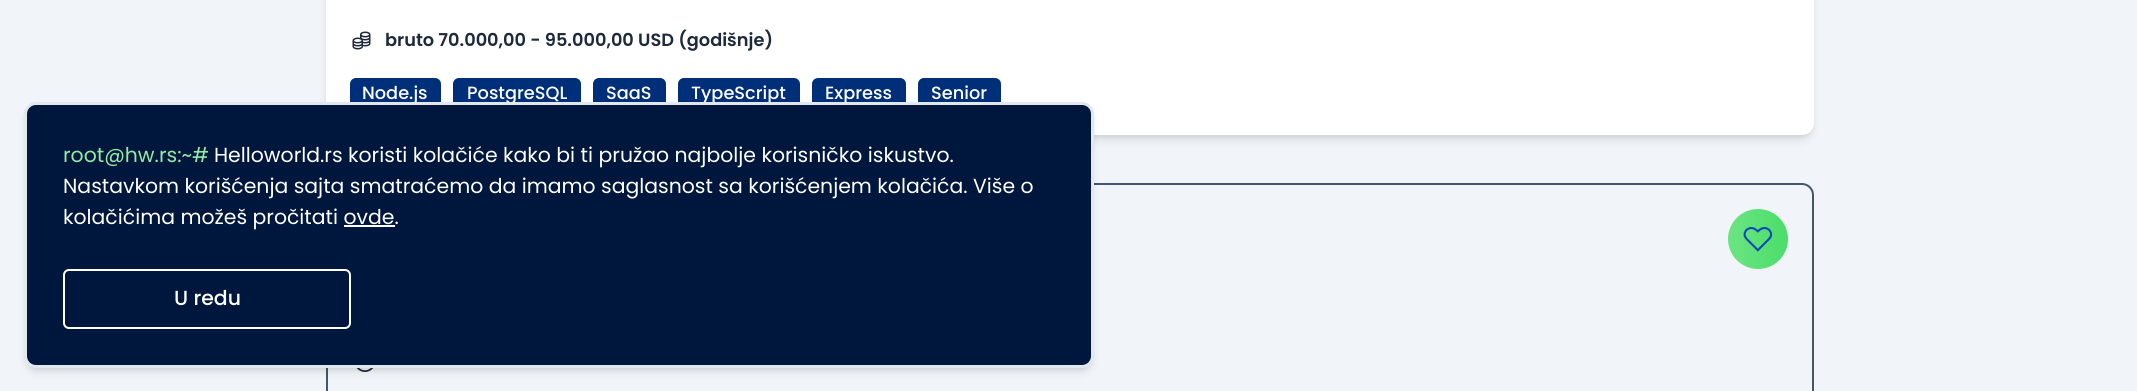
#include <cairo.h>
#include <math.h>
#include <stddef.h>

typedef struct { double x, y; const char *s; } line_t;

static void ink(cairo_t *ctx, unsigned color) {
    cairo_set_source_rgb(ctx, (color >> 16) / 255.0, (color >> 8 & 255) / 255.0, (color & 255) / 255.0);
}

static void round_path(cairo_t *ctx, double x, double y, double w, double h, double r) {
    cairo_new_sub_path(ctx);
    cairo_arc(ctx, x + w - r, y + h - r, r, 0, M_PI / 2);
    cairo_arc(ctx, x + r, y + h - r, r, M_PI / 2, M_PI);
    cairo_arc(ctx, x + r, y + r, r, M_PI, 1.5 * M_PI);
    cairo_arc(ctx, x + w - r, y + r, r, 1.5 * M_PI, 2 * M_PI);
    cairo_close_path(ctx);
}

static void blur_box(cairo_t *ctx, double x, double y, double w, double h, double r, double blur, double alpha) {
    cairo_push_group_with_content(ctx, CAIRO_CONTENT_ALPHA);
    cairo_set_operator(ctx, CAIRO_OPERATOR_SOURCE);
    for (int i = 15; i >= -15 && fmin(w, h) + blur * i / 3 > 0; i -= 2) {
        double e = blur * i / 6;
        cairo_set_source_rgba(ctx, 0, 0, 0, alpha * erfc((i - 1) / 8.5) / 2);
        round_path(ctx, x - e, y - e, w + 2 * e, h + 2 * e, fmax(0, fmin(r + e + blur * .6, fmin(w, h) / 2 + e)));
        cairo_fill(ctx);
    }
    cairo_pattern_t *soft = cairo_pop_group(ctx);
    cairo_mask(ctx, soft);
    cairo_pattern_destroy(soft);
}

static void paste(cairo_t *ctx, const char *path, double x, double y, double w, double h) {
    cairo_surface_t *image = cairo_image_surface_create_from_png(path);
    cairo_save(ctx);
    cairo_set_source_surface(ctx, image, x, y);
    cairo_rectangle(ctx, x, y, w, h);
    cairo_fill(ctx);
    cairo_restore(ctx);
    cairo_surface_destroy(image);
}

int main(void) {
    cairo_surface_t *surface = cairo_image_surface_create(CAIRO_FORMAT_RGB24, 2137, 391);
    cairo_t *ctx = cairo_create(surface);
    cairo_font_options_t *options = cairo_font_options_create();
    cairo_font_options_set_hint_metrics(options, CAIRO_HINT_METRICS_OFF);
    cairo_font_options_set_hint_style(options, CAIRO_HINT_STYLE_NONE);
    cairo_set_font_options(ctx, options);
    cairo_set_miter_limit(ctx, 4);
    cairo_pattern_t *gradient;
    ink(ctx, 0xF1F5F9);
    cairo_paint(ctx);
    ink(ctx, 0x000000);
    blur_box(ctx, 329, -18, 1482, 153, 9, 3, 0.1);
    blur_box(ctx, 327, -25, 1485, 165, 11, 4.5, 0.1);
    ink(ctx, 0xFFFFFF);
    round_path(ctx, 326, -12, 1488, 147, 12);
    cairo_fill(ctx);
    paste(ctx, "media/1.png", 352, 31, 19, 19);
    cairo_select_font_face(ctx, "Poppins SemiBold", CAIRO_FONT_SLANT_NORMAL, CAIRO_FONT_WEIGHT_NORMAL);
    cairo_set_font_size(ctx, 17.75);
    ink(ctx, 0x1E293B);
    cairo_move_to(ctx, 385, 46);
    cairo_show_text(ctx, "bruto 70.000,00 - 95.000,00 USD (godišnje)");
    ink(ctx, 0x002F7A);
    round_path(ctx, 350, 78, 91, 33, 6);
    cairo_fill(ctx);
    cairo_select_font_face(ctx, "Poppins Medium", CAIRO_FONT_SLANT_NORMAL, CAIRO_FONT_WEIGHT_NORMAL);
    ink(ctx, 0xFFFFFF);
    cairo_move_to(ctx, 362, 99);
    cairo_show_text(ctx, "Node.js");
    ink(ctx, 0x002F7A);
    round_path(ctx, 453, 78, 128, 33, 6);
    cairo_fill(ctx);
    ink(ctx, 0xFFFFFF);
    cairo_move_to(ctx, 467, 99);
    cairo_show_text(ctx, "PostgreSQL");
    ink(ctx, 0x002F7A);
    round_path(ctx, 593, 78, 73, 33, 6);
    cairo_fill(ctx);
    ink(ctx, 0xFFFFFF);
    cairo_move_to(ctx, 606, 99);
    cairo_show_text(ctx, "SaaS");
    ink(ctx, 0x002F7A);
    round_path(ctx, 678, 78, 122, 33, 6);
    cairo_fill(ctx);
    ink(ctx, 0xFFFFFF);
    cairo_move_to(ctx, 691, 99);
    cairo_show_text(ctx, "TypeScript");
    ink(ctx, 0x002F7A);
    round_path(ctx, 812, 78, 94, 33, 6);
    cairo_fill(ctx);
    ink(ctx, 0xFFFFFF);
    cairo_move_to(ctx, 825, 99);
    cairo_show_text(ctx, "Express");
    ink(ctx, 0x002F7A);
    round_path(ctx, 918, 78, 83, 33, 6);
    cairo_fill(ctx);
    ink(ctx, 0xFFFFFF);
    cairo_move_to(ctx, 931, 99);
    cairo_show_text(ctx, "Senior");
    round_path(ctx, 327, 184, 1486, 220, 11);
    ink(ctx, 0x475569);
    cairo_stroke(ctx);
    gradient = cairo_pattern_create_linear(1728, 239, 1788, 239);
    cairo_pattern_add_color_stop_rgba(gradient, 0, 0.424, 0.894, 0.518, 1);
    cairo_pattern_add_color_stop_rgba(gradient, 1, 0.29, 0.871, 0.408, 1);
    cairo_set_source(ctx, gradient);
    cairo_pattern_destroy(gradient);
    cairo_arc(ctx, 1758, 239, 30, 0, 2 * M_PI);
    cairo_fill(ctx);
    paste(ctx, "media/2.png", 1743, 227, 30, 25);
    paste(ctx, "media/3.png", 356, 368, 18, 4);
    ink(ctx, 0x000000);
    blur_box(ctx, 27, 108, 1064, 260, 9, 3, 0.1);
    blur_box(ctx, 26, 110, 1066, 262, 11, 4.5, 0.1);
    ink(ctx, 0x00173D);
    round_path(ctx, 25.5, 103.5, 1067, 263, 10.5);
    cairo_fill_preserve(ctx);
    ink(ctx, 0xE2E8F0);
    cairo_set_line_width(ctx, 3);
    cairo_stroke(ctx);
    cairo_select_font_face(ctx, "Poppins", CAIRO_FONT_SLANT_NORMAL, CAIRO_FONT_WEIGHT_NORMAL);
    cairo_set_font_size(ctx, 20.4);
    ink(ctx, 0x93EBA5);
    cairo_move_to(ctx, 63, 162);
    cairo_show_text(ctx, "root@hw.rs:~#");
    ink(ctx, 0xFFFFFF);
    {
        static const line_t items[] = {
            {214, 162, "Helloworld.rs koristi kolačiće kako bi ti pružao najbolje korisničko iskustvo."},
            {63, 193, "Nastavkom korišćenja sajta smatraćemo da imamo saglasnost sa korišćenjem kolačića. Više o"},
            {63, 224, "kolačićima možeš pročitati ovde."},
        };
        for (size_t i = 0; i < sizeof items / sizeof *items; i++) {
            cairo_move_to(ctx, items[i].x, items[i].y);
            cairo_show_text(ctx, items[i].s);
        }
    }
    cairo_rectangle(ctx, 344, 225, 51, 2);
    cairo_fill(ctx);
    round_path(ctx, 64, 270, 286, 58, 5);
    cairo_set_line_width(ctx, 2);
    cairo_stroke(ctx);
    cairo_select_font_face(ctx, "Poppins Medium", CAIRO_FONT_SLANT_NORMAL, CAIRO_FONT_WEIGHT_NORMAL);
    cairo_move_to(ctx, 174, 305);
    cairo_show_text(ctx, "U redu");
    cairo_surface_write_to_png(surface, "image.png");
    cairo_font_options_destroy(options);
    cairo_destroy(ctx);
    cairo_surface_destroy(surface);
    return 0;
}
